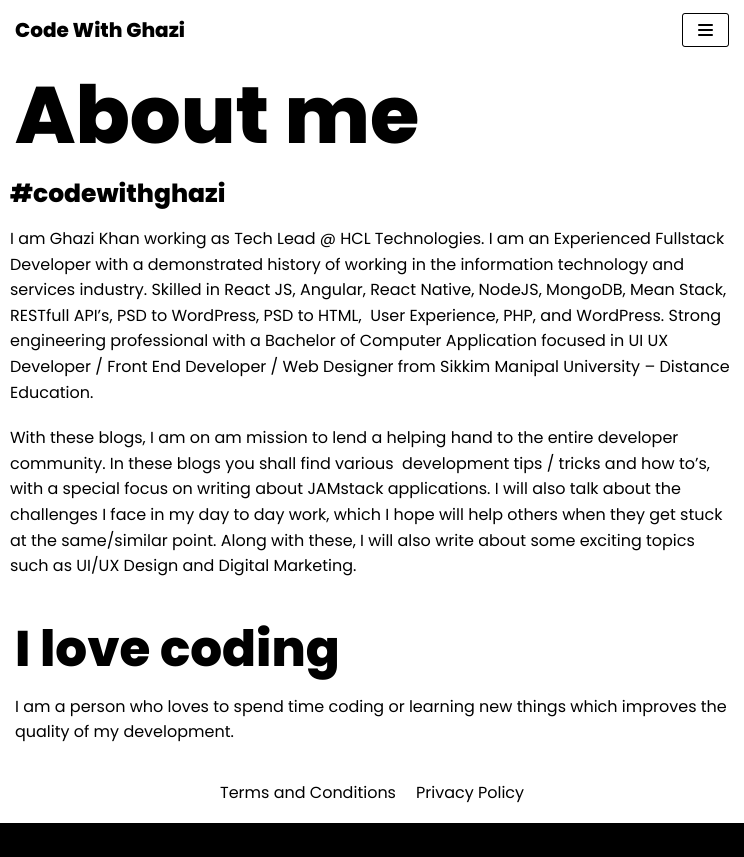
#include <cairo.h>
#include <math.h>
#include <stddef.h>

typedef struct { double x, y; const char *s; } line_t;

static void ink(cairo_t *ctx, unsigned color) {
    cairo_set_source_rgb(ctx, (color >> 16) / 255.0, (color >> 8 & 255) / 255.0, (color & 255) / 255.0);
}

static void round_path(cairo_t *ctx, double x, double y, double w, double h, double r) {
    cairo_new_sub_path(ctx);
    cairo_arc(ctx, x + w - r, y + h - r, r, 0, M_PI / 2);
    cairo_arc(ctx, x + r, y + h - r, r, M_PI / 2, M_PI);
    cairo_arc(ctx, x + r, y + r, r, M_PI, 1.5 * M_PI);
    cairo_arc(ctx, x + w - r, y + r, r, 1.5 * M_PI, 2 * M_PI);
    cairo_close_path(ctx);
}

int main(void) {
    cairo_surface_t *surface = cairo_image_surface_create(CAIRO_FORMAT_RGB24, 744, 857);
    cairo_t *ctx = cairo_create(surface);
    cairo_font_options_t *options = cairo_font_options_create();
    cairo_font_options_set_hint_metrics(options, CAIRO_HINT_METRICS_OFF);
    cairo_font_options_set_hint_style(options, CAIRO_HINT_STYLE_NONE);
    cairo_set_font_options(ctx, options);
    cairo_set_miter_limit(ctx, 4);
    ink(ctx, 0xFFFFFF);
    cairo_paint(ctx);
    cairo_select_font_face(ctx, "Poppins ExtraBold", CAIRO_FONT_SLANT_NORMAL, CAIRO_FONT_WEIGHT_NORMAL);
    cairo_set_font_size(ctx, 20);
    ink(ctx, 0x000000);
    cairo_move_to(ctx, 15, 37);
    cairo_show_text(ctx, "Code With Ghazi");
    round_path(ctx, 682.5, 13.5, 46, 33, 2.5);
    cairo_set_line_width(ctx, 1);
    cairo_stroke(ctx);
    round_path(ctx, 698, 24, 15, 2, 1);
    cairo_fill(ctx);
    round_path(ctx, 698, 29, 15, 2, 1);
    cairo_fill(ctx);
    round_path(ctx, 698, 34, 15, 2, 1);
    cairo_fill(ctx);
    cairo_set_font_size(ctx, 80);
    cairo_move_to(ctx, 15, 143);
    cairo_show_text(ctx, "About me");
    cairo_set_font_size(ctx, 25);
    cairo_move_to(ctx, 10, 202);
    cairo_show_text(ctx, "#codewithghazi");
    cairo_select_font_face(ctx, "Poppins", CAIRO_FONT_SLANT_NORMAL, CAIRO_FONT_WEIGHT_NORMAL);
    cairo_set_font_size(ctx, 16);
    {
        static const line_t items[] = {
            {10, 244, "I am Ghazi Khan working as Tech Lead @ HCL Technologies. I am an Experienced Fullstack"},
            {10, 270, "Developer with a demonstrated history of working in the information technology and"},
            {10, 295, "services industry. Skilled in React JS, Angular, React Native, NodeJS, MongoDB, Mean Stack,"},
            {10, 321, "RESTfull API’s, PSD to WordPress, PSD to HTML,  User Experience, PHP, and WordPress. Strong"},
            {10, 346, "engineering professional with a Bachelor of Computer Application focused in UI UX"},
            {10, 372, "Developer / Front End Developer / Web Designer from Sikkim Manipal University – Distance"},
            {10, 398, "Education."},
            {10, 443, "With these blogs, I am on am mission to lend a helping hand to the entire developer"},
            {10, 469, "community. In these blogs you shall find various  development tips / tricks and how to’s,"},
            {10, 494, "with a special focus on writing about JAMstack applications. I will also talk about the"},
            {10, 520, "challenges I face in my day to day work, which I hope will help others when they get stuck"},
            {10, 546, "at the same/similar point. Along with these, I will also write about some exciting topics"},
            {10, 571, "such as UI/UX Design and Digital Marketing."},
        };
        for (size_t i = 0; i < sizeof items / sizeof *items; i++) {
            cairo_move_to(ctx, items[i].x, items[i].y);
            cairo_show_text(ctx, items[i].s);
        }
    }
    cairo_select_font_face(ctx, "Poppins ExtraBold", CAIRO_FONT_SLANT_NORMAL, CAIRO_FONT_WEIGHT_NORMAL);
    cairo_set_font_size(ctx, 50);
    cairo_move_to(ctx, 15, 666);
    cairo_show_text(ctx, "I love coding");
    cairo_select_font_face(ctx, "Poppins", CAIRO_FONT_SLANT_NORMAL, CAIRO_FONT_WEIGHT_NORMAL);
    cairo_set_font_size(ctx, 16);
    {
        static const line_t items[] = {
            {15, 712, "I am a person who loves to spend time coding or learning new things which improves the"},
            {15, 737, "quality of my development."},
            {220, 798, "Terms and Conditions"},
            {416, 798, "Privacy Policy"},
        };
        for (size_t i = 0; i < sizeof items / sizeof *items; i++) {
            cairo_move_to(ctx, items[i].x, items[i].y);
            cairo_show_text(ctx, items[i].s);
        }
    }
    cairo_rectangle(ctx, 0, 823, 744, 34);
    cairo_fill(ctx);
    cairo_surface_write_to_png(surface, "image.png");
    cairo_font_options_destroy(options);
    cairo_destroy(ctx);
    cairo_surface_destroy(surface);
    return 0;
}
